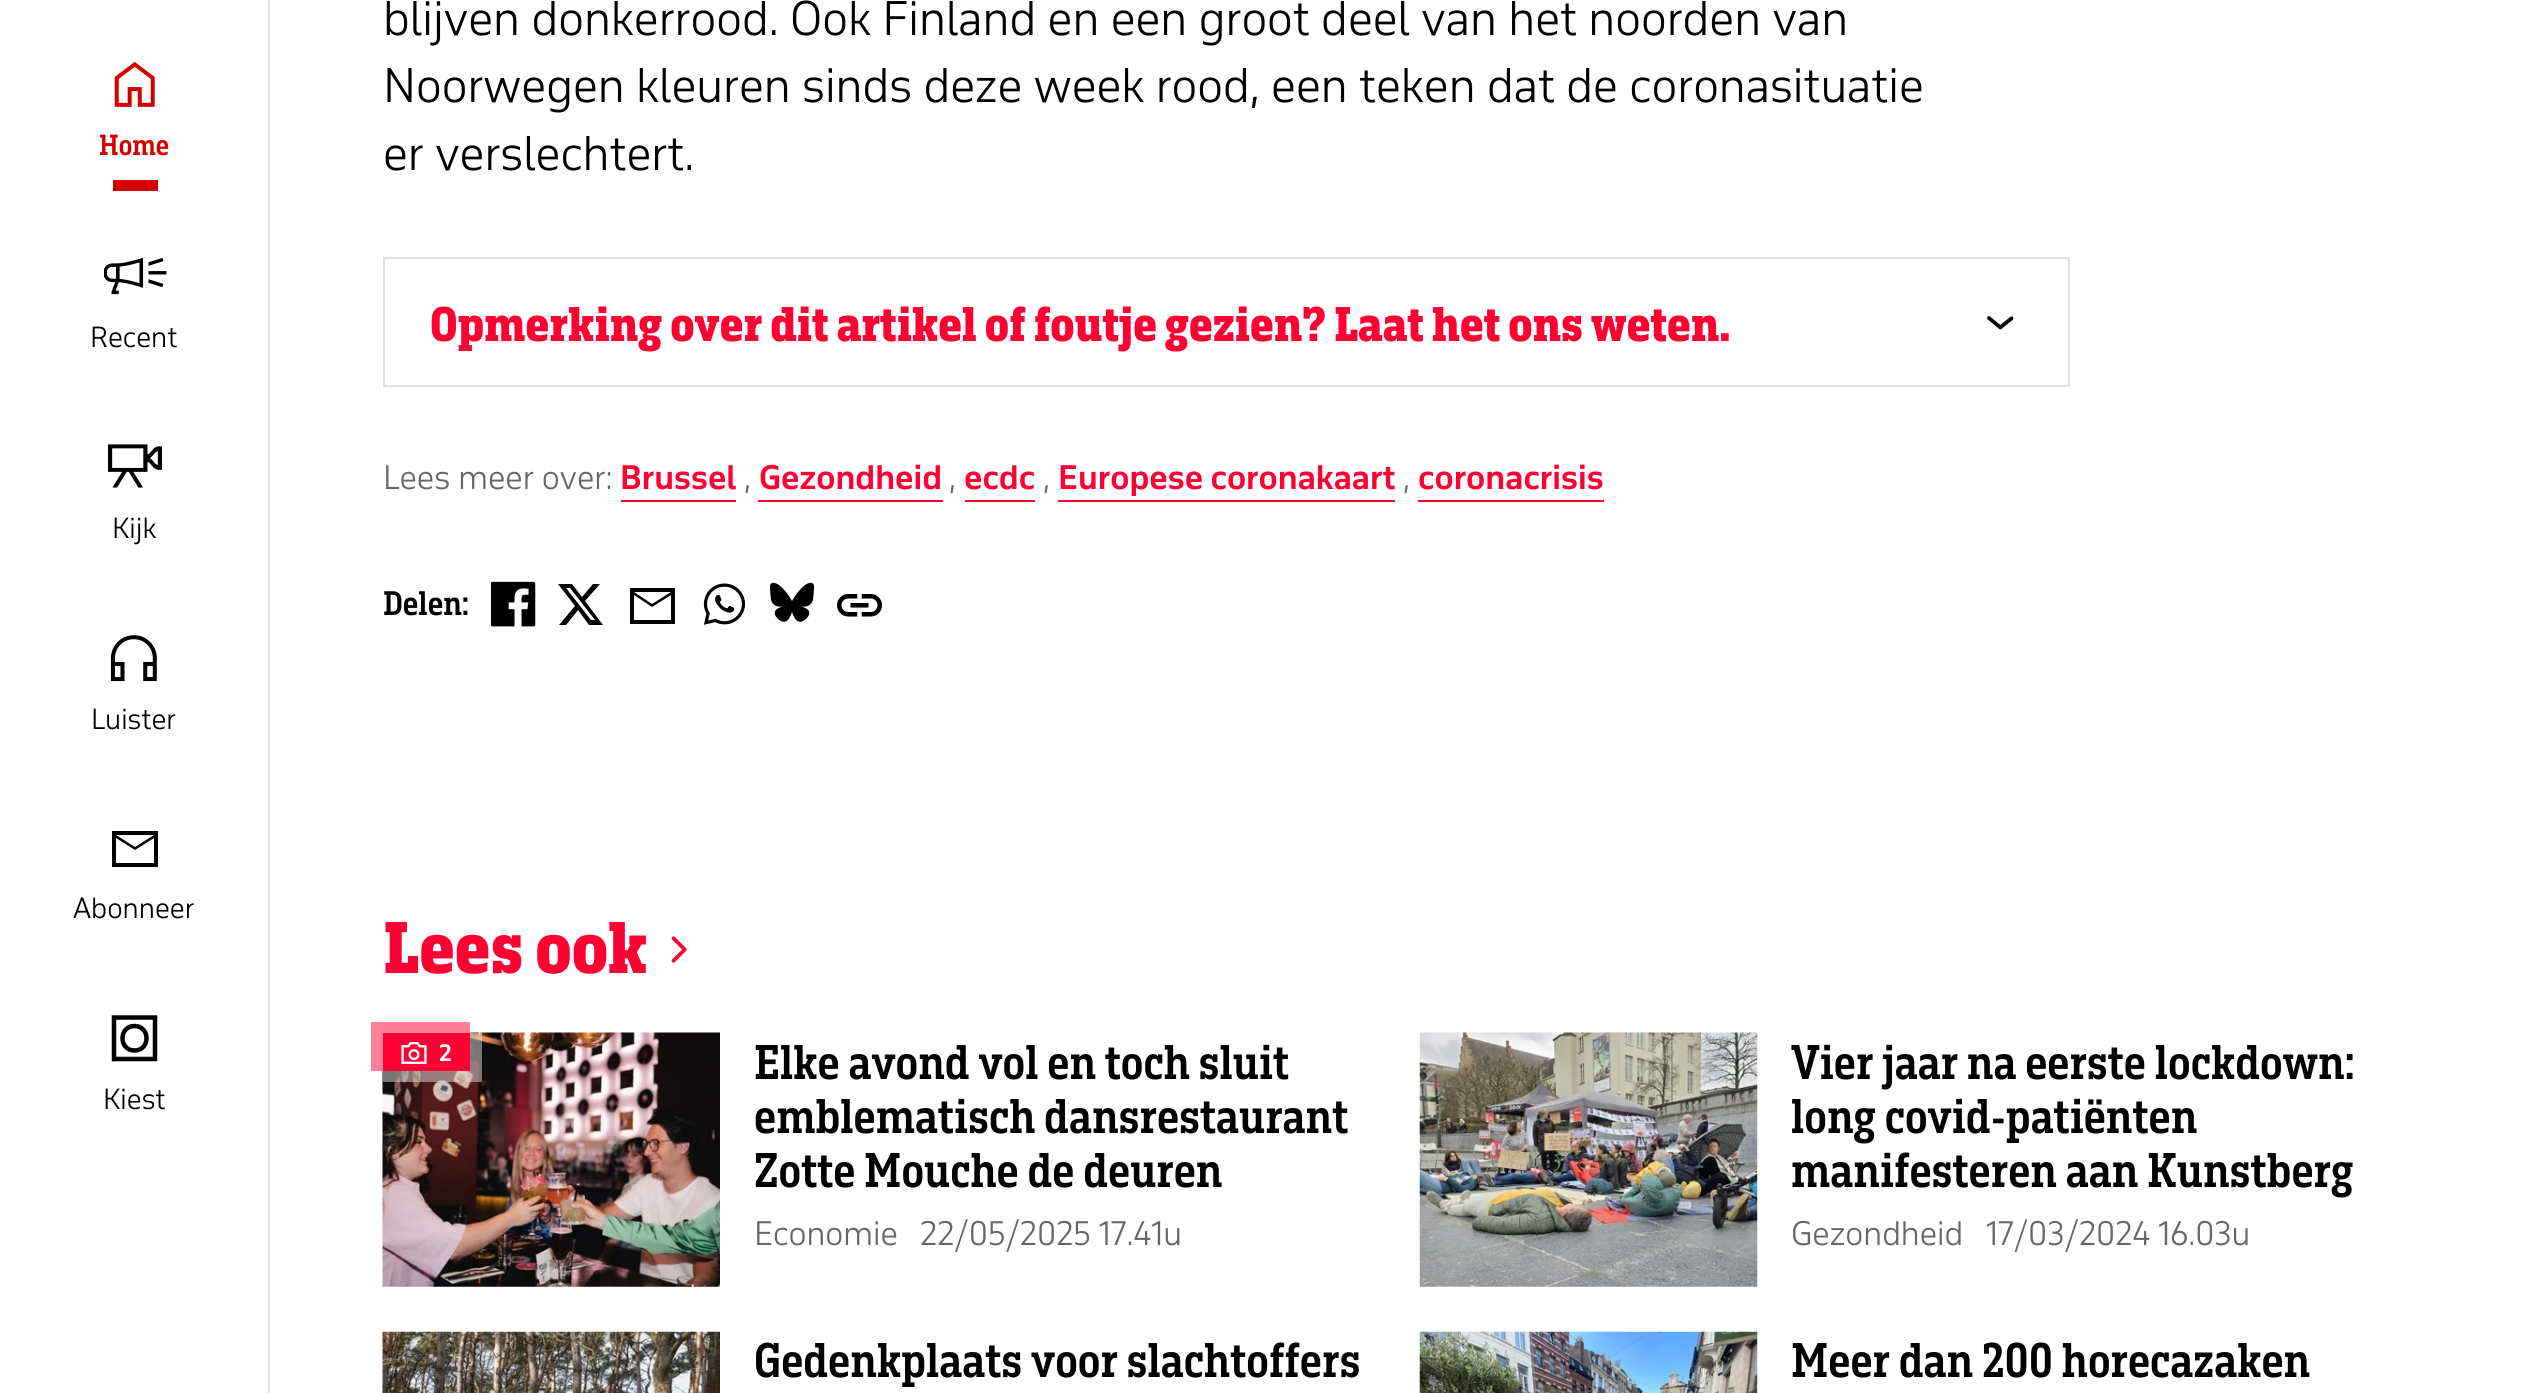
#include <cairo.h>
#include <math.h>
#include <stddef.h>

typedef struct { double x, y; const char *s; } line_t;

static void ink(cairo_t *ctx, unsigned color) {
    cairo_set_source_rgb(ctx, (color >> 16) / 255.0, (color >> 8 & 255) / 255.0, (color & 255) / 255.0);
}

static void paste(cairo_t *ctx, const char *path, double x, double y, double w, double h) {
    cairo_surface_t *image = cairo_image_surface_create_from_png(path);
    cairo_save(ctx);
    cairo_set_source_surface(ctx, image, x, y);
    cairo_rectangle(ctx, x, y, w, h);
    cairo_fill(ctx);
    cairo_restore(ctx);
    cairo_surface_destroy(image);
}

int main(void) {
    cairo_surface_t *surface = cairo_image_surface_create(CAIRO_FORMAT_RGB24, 2524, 1393);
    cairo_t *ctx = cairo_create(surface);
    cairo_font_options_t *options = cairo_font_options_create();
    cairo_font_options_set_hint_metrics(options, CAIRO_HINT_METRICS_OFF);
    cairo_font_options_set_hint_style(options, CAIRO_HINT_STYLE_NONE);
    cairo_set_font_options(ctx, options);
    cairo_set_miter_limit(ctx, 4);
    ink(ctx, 0xFFFFFF);
    cairo_paint(ctx);
    ink(ctx, 0xE0E0E0);
    cairo_rectangle(ctx, 268, 0, 2, 1393);
    cairo_fill(ctx);
    paste(ctx, "media/1.png", 114, 62, 41, 45);
    cairo_select_font_face(ctx, "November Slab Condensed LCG", CAIRO_FONT_SLANT_NORMAL, CAIRO_FONT_WEIGHT_BOLD);
    cairo_set_font_size(ctx, 27);
    ink(ctx, 0xD40000);
    cairo_move_to(ctx, 99, 155);
    cairo_show_text(ctx, "Home");
    cairo_rectangle(ctx, 113, 180, 45, 11);
    cairo_fill(ctx);
    paste(ctx, "media/2.png", 104, 257, 63, 38);
    cairo_select_font_face(ctx, "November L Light", CAIRO_FONT_SLANT_NORMAL, CAIRO_FONT_WEIGHT_NORMAL);
    ink(ctx, 0x000000);
    cairo_move_to(ctx, 90, 347);
    cairo_show_text(ctx, "Recent");
    paste(ctx, "media/3.png", 108, 444, 54, 44);
    cairo_move_to(ctx, 112, 538);
    cairo_show_text(ctx, "Kijk");
    paste(ctx, "media/4.png", 110, 635, 47, 47);
    cairo_move_to(ctx, 91, 729);
    cairo_show_text(ctx, "Luister");
    cairo_new_path(ctx);
    cairo_move_to(ctx, 112, 867);
    cairo_line_to(ctx, 112, 831);
    cairo_line_to(ctx, 158, 831);
    cairo_line_to(ctx, 158, 867);
    cairo_close_path(ctx);
    cairo_move_to(ctx, 135, 850);
    cairo_line_to(ctx, 116, 838);
    cairo_line_to(ctx, 116, 863);
    cairo_line_to(ctx, 154, 863);
    cairo_line_to(ctx, 154, 838);
    cairo_close_path(ctx);
    cairo_move_to(ctx, 135, 847);
    cairo_line_to(ctx, 154, 835);
    cairo_line_to(ctx, 116, 835);
    cairo_close_path(ctx);
    cairo_move_to(ctx, 116, 838);
    cairo_line_to(ctx, 116, 835);
    cairo_line_to(ctx, 116, 863);
    cairo_close_path(ctx);
    cairo_fill(ctx);
    cairo_move_to(ctx, 73, 918);
    cairo_show_text(ctx, "Abonneer");
    cairo_new_path(ctx);
    cairo_move_to(ctx, 155, 1017.5);
    cairo_line_to(ctx, 114, 1017.5);
    cairo_line_to(ctx, 114, 1059);
    cairo_line_to(ctx, 155, 1059);
    cairo_close_path(ctx);
    cairo_move_to(ctx, 134.5, 1050.5);
    cairo_curve_to(ctx, 150.5, 1050.5, 150.5, 1026, 134.5, 1026);
    cairo_curve_to(ctx, 118.5, 1026, 118.5, 1050.5, 134.5, 1050.5);
    cairo_close_path(ctx);
    cairo_set_line_width(ctx, 4.5);
    cairo_stroke(ctx);
    cairo_move_to(ctx, 103, 1109);
    cairo_show_text(ctx, "Kiest");
    cairo_set_font_size(ctx, 45);
    {
        static const line_t items[] = {
            {383, 35, "blijven donkerrood. Ook Finland en een groot deel van het noorden van"},
            {383, 102, "Noorwegen kleuren sinds deze week rood, een teken dat de coronasituatie"},
            {383, 170, "er verslechtert."},
        };
        for (size_t i = 0; i < sizeof items / sizeof *items; i++) {
            cairo_move_to(ctx, items[i].x, items[i].y);
            cairo_show_text(ctx, items[i].s);
        }
    }
    cairo_rectangle(ctx, 384, 258, 1685, 128);
    ink(ctx, 0xE0E0E0);
    cairo_set_line_width(ctx, 2);
    cairo_stroke(ctx);
    cairo_select_font_face(ctx, "November Slab Condensed LCG Black", CAIRO_FONT_SLANT_NORMAL, CAIRO_FONT_WEIGHT_NORMAL);
    ink(ctx, 0xFF0033);
    cairo_move_to(ctx, 430, 341);
    cairo_show_text(ctx, "Opmerking over dit artikel of foutje gezien? Laat het ons weten.");
    paste(ctx, "media/5.png", 1987, 316, 27, 14);
    cairo_select_font_face(ctx, "November L Light", CAIRO_FONT_SLANT_NORMAL, CAIRO_FONT_WEIGHT_NORMAL);
    cairo_set_font_size(ctx, 31.5);
    ink(ctx, 0x666666);
    cairo_move_to(ctx, 383, 489);
    cairo_show_text(ctx, "Lees meer over:");
    cairo_select_font_face(ctx, "November L", CAIRO_FONT_SLANT_NORMAL, CAIRO_FONT_WEIGHT_BOLD);
    ink(ctx, 0xFF0033);
    cairo_move_to(ctx, 620, 489);
    cairo_show_text(ctx, "Brussel");
    cairo_rectangle(ctx, 621, 500, 115, 2);
    cairo_fill(ctx);
    cairo_select_font_face(ctx, "November L Light", CAIRO_FONT_SLANT_NORMAL, CAIRO_FONT_WEIGHT_NORMAL);
    ink(ctx, 0x666666);
    cairo_move_to(ctx, 744, 489);
    cairo_show_text(ctx, ",");
    cairo_select_font_face(ctx, "November L", CAIRO_FONT_SLANT_NORMAL, CAIRO_FONT_WEIGHT_BOLD);
    ink(ctx, 0xFF0033);
    cairo_move_to(ctx, 759, 489);
    cairo_show_text(ctx, "Gezondheid");
    cairo_rectangle(ctx, 758, 500, 185, 2);
    cairo_fill(ctx);
    cairo_select_font_face(ctx, "November L Light", CAIRO_FONT_SLANT_NORMAL, CAIRO_FONT_WEIGHT_NORMAL);
    ink(ctx, 0x666666);
    cairo_move_to(ctx, 949, 489);
    cairo_show_text(ctx, ",");
    cairo_select_font_face(ctx, "November L", CAIRO_FONT_SLANT_NORMAL, CAIRO_FONT_WEIGHT_BOLD);
    ink(ctx, 0xFF0033);
    cairo_move_to(ctx, 964, 489);
    cairo_show_text(ctx, "ecdc");
    cairo_rectangle(ctx, 965, 500, 70, 2);
    cairo_fill(ctx);
    cairo_select_font_face(ctx, "November L Light", CAIRO_FONT_SLANT_NORMAL, CAIRO_FONT_WEIGHT_NORMAL);
    ink(ctx, 0x666666);
    cairo_move_to(ctx, 1043, 489);
    cairo_show_text(ctx, ",");
    cairo_select_font_face(ctx, "November L", CAIRO_FONT_SLANT_NORMAL, CAIRO_FONT_WEIGHT_BOLD);
    ink(ctx, 0xFF0033);
    cairo_move_to(ctx, 1058, 489);
    cairo_show_text(ctx, "Europese coronakaart");
    cairo_rectangle(ctx, 1058, 500, 337, 2);
    cairo_fill(ctx);
    cairo_select_font_face(ctx, "November L Light", CAIRO_FONT_SLANT_NORMAL, CAIRO_FONT_WEIGHT_NORMAL);
    ink(ctx, 0x666666);
    cairo_move_to(ctx, 1403, 489);
    cairo_show_text(ctx, ",");
    cairo_select_font_face(ctx, "November L", CAIRO_FONT_SLANT_NORMAL, CAIRO_FONT_WEIGHT_BOLD);
    ink(ctx, 0xFF0033);
    cairo_move_to(ctx, 1418, 489);
    cairo_show_text(ctx, "coronacrisis");
    cairo_rectangle(ctx, 1418, 500, 186, 2);
    cairo_fill(ctx);
    cairo_select_font_face(ctx, "November Slab Condensed LCG", CAIRO_FONT_SLANT_NORMAL, CAIRO_FONT_WEIGHT_BOLD);
    ink(ctx, 0x000000);
    cairo_move_to(ctx, 383, 615);
    cairo_show_text(ctx, "Delen:");
    paste(ctx, "media/6.png", 491, 581, 45, 46);
    cairo_new_path(ctx);
    cairo_move_to(ctx, 593, 584);
    cairo_line_to(ctx, 600, 584);
    cairo_line_to(ctx, 585, 601);
    cairo_line_to(ctx, 603, 625);
    cairo_line_to(ctx, 589, 625);
    cairo_line_to(ctx, 578, 610);
    cairo_line_to(ctx, 566, 625);
    cairo_line_to(ctx, 559, 625);
    cairo_line_to(ctx, 575, 606);
    cairo_line_to(ctx, 558, 584);
    cairo_line_to(ctx, 572, 584);
    cairo_line_to(ctx, 582, 597);
    cairo_close_path(ctx);
    cairo_move_to(ctx, 591, 620);
    cairo_line_to(ctx, 595, 620);
    cairo_line_to(ctx, 570, 588);
    cairo_line_to(ctx, 566, 588);
    cairo_close_path(ctx);
    cairo_fill(ctx);
    cairo_new_path(ctx);
    cairo_move_to(ctx, 630, 624);
    cairo_line_to(ctx, 630, 588);
    cairo_line_to(ctx, 675, 588);
    cairo_line_to(ctx, 675, 624);
    cairo_close_path(ctx);
    cairo_move_to(ctx, 652, 607);
    cairo_line_to(ctx, 634, 595);
    cairo_line_to(ctx, 634, 620);
    cairo_line_to(ctx, 671, 620);
    cairo_line_to(ctx, 671, 595);
    cairo_close_path(ctx);
    cairo_move_to(ctx, 652, 604);
    cairo_line_to(ctx, 671, 592);
    cairo_line_to(ctx, 634, 592);
    cairo_close_path(ctx);
    cairo_move_to(ctx, 634, 595);
    cairo_line_to(ctx, 634, 592);
    cairo_line_to(ctx, 634, 620);
    cairo_close_path(ctx);
    cairo_fill(ctx);
    paste(ctx, "media/7.png", 703, 583, 43, 42);
    paste(ctx, "media/8.png", 770, 582, 45, 40);
    paste(ctx, "media/9.png", 837, 594, 45, 23);
    cairo_select_font_face(ctx, "November Slab Condensed LCG Black", CAIRO_FONT_SLANT_NORMAL, CAIRO_FONT_WEIGHT_NORMAL);
    cairo_set_font_size(ctx, 67.5);
    ink(ctx, 0xFF0033);
    cairo_move_to(ctx, 383, 973);
    cairo_show_text(ctx, "Lees ook");
    paste(ctx, "media/10.png", 671, 936, 16, 27);
    paste(ctx, "media/11.png", 382, 1032, 338, 255);
    ink(ctx, 0xFF8099);
    cairo_rectangle(ctx, 371, 1022, 99, 49);
    cairo_fill(ctx);
    cairo_set_source_rgba(ctx, 0.878, 0.878, 0.878, 0.5);
    cairo_rectangle(ctx, 383, 1033, 99, 49);
    cairo_fill(ctx);
    ink(ctx, 0xFF0033);
    cairo_rectangle(ctx, 383, 1033, 87, 38);
    cairo_fill(ctx);
    paste(ctx, "media/12.png", 401, 1042, 26, 22);
    cairo_select_font_face(ctx, "November L", CAIRO_FONT_SLANT_NORMAL, CAIRO_FONT_WEIGHT_BOLD);
    cairo_set_font_size(ctx, 22);
    ink(ctx, 0xFFFFFF);
    cairo_move_to(ctx, 439, 1061);
    cairo_show_text(ctx, "2");
    cairo_select_font_face(ctx, "November Slab Condensed LCG", CAIRO_FONT_SLANT_NORMAL, CAIRO_FONT_WEIGHT_BOLD);
    cairo_set_font_size(ctx, 45);
    ink(ctx, 0x000000);
    {
        static const line_t items[] = {
            {754, 1079, "Elke avond vol en toch sluit"},
            {754, 1133, "emblematisch dansrestaurant"},
            {754, 1187, "Zotte Mouche de deuren"},
        };
        for (size_t i = 0; i < sizeof items / sizeof *items; i++) {
            cairo_move_to(ctx, items[i].x, items[i].y);
            cairo_show_text(ctx, items[i].s);
        }
    }
    cairo_select_font_face(ctx, "November L Light", CAIRO_FONT_SLANT_NORMAL, CAIRO_FONT_WEIGHT_NORMAL);
    cairo_set_font_size(ctx, 31.5);
    ink(ctx, 0x666666);
    cairo_move_to(ctx, 754, 1245);
    cairo_show_text(ctx, "Economie");
    cairo_move_to(ctx, 920, 1245);
    cairo_show_text(ctx, "22/05/2025 17.41u");
    paste(ctx, "media/13.png", 1419, 1032, 339, 255);
    cairo_select_font_face(ctx, "November Slab Condensed LCG", CAIRO_FONT_SLANT_NORMAL, CAIRO_FONT_WEIGHT_BOLD);
    cairo_set_font_size(ctx, 45);
    ink(ctx, 0x000000);
    {
        static const line_t items[] = {
            {1791, 1079, "Vier jaar na eerste lockdown:"},
            {1791, 1133, "long covid-patiënten"},
            {1791, 1187, "manifesteren aan Kunstberg"},
        };
        for (size_t i = 0; i < sizeof items / sizeof *items; i++) {
            cairo_move_to(ctx, items[i].x, items[i].y);
            cairo_show_text(ctx, items[i].s);
        }
    }
    cairo_select_font_face(ctx, "November L Light", CAIRO_FONT_SLANT_NORMAL, CAIRO_FONT_WEIGHT_NORMAL);
    cairo_set_font_size(ctx, 31.5);
    ink(ctx, 0x666666);
    cairo_move_to(ctx, 1791, 1245);
    cairo_show_text(ctx, "Gezondheid");
    cairo_move_to(ctx, 1986, 1245);
    cairo_show_text(ctx, "17/03/2024 16.03u");
    paste(ctx, "media/14.png", 382, 1331, 338, 62);
    cairo_select_font_face(ctx, "November Slab Condensed LCG", CAIRO_FONT_SLANT_NORMAL, CAIRO_FONT_WEIGHT_BOLD);
    cairo_set_font_size(ctx, 45);
    ink(ctx, 0x000000);
    cairo_move_to(ctx, 754, 1377);
    cairo_show_text(ctx, "Gedenkplaats voor slachtoffers");
    paste(ctx, "media/15.png", 1419, 1331, 339, 62);
    cairo_move_to(ctx, 1791, 1377);
    cairo_show_text(ctx, "Meer dan 200 horecazaken");
    cairo_surface_write_to_png(surface, "image.png");
    cairo_font_options_destroy(options);
    cairo_destroy(ctx);
    cairo_surface_destroy(surface);
    return 0;
}
